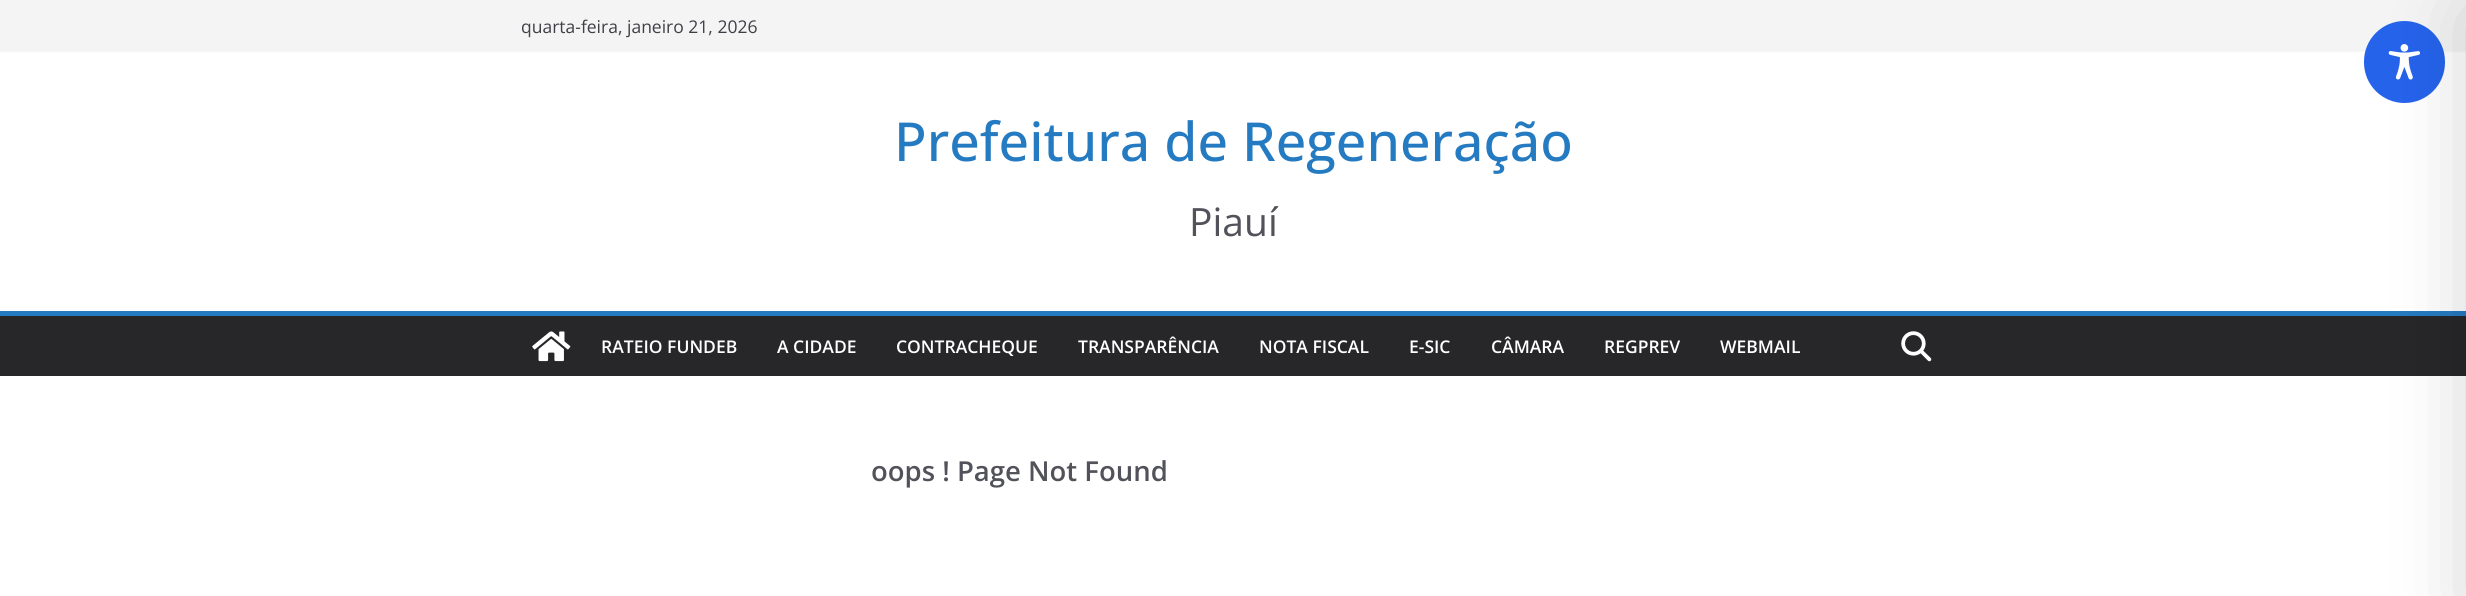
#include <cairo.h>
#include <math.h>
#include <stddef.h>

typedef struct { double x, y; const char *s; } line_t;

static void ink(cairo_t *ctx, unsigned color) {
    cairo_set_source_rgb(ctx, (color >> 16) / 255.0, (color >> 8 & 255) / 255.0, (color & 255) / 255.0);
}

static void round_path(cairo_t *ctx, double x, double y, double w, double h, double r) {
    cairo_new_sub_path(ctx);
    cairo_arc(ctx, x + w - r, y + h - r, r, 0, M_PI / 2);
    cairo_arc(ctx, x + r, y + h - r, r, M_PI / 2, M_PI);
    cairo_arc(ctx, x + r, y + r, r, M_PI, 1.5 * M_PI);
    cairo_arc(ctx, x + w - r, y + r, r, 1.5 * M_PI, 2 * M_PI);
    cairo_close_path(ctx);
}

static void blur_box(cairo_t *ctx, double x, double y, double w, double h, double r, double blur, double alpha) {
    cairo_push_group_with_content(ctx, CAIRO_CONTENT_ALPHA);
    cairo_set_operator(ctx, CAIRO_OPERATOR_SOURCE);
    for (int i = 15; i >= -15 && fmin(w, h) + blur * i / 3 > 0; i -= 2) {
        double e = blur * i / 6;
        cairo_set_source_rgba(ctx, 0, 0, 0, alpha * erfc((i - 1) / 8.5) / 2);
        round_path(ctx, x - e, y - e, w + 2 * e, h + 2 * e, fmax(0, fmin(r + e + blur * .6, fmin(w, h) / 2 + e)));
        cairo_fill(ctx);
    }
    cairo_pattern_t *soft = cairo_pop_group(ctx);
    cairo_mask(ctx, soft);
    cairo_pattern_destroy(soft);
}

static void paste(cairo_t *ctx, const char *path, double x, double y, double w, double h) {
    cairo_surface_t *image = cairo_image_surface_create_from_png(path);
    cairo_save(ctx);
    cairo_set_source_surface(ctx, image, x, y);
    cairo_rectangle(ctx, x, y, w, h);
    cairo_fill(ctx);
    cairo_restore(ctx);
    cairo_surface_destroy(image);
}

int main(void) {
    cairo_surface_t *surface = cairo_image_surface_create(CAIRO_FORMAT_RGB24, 2466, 596);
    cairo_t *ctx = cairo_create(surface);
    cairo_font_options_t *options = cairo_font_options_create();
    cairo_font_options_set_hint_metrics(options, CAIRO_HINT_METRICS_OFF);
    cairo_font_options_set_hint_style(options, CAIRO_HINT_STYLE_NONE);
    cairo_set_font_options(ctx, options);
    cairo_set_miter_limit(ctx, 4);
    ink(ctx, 0xFFFFFF);
    cairo_paint(ctx);
    ink(ctx, 0x000000);
    blur_box(ctx, 0, 0, 2466, 51, 0, 1, 0.1);
    ink(ctx, 0xF4F4F5);
    cairo_rectangle(ctx, 0, 0, 2466, 51);
    cairo_fill(ctx);
    cairo_select_font_face(ctx, "Open Sans", CAIRO_FONT_SLANT_NORMAL, CAIRO_FONT_WEIGHT_NORMAL);
    cairo_set_font_size(ctx, 17.5);
    ink(ctx, 0x3F3F46);
    cairo_move_to(ctx, 521, 33);
    cairo_show_text(ctx, "quarta-feira, janeiro 21, 2026");
    cairo_select_font_face(ctx, "Open Sans Medium", CAIRO_FONT_SLANT_NORMAL, CAIRO_FONT_WEIGHT_NORMAL);
    cairo_set_font_size(ctx, 53.75);
    ink(ctx, 0x257BC1);
    cairo_move_to(ctx, 894, 161);
    cairo_show_text(ctx, "Prefeitura de Regeneração");
    cairo_select_font_face(ctx, "Open Sans", CAIRO_FONT_SLANT_NORMAL, CAIRO_FONT_WEIGHT_NORMAL);
    cairo_set_font_size(ctx, 39);
    ink(ctx, 0x52525B);
    cairo_move_to(ctx, 1189, 236);
    cairo_show_text(ctx, "Piauí");
    ink(ctx, 0x27272A);
    cairo_rectangle(ctx, 0, 316, 2466, 60);
    cairo_fill(ctx);
    ink(ctx, 0x257BC1);
    cairo_rectangle(ctx, 0, 311, 2466, 5);
    cairo_fill(ctx);
    paste(ctx, "media/1.png", 532, 331, 39, 31);
    cairo_select_font_face(ctx, "Open Sans SemiBold", CAIRO_FONT_SLANT_NORMAL, CAIRO_FONT_WEIGHT_NORMAL);
    cairo_set_font_size(ctx, 17.5);
    ink(ctx, 0xFFFFFF);
    {
        static const line_t items[] = {
            {601, 353, "RATEIO FUNDEB"},
            {777, 353, "A CIDADE"},
            {896, 353, "CONTRACHEQUE"},
            {1078, 353, "TRANSPARÊNCIA"},
            {1259, 353, "NOTA FISCAL"},
            {1409, 353, "E-SIC"},
            {1491, 353, "CÂMARA"},
            {1604, 353, "REGPREV"},
            {1720, 353, "WEBMAIL"},
        };
        for (size_t i = 0; i < sizeof items / sizeof *items; i++) {
            cairo_move_to(ctx, items[i].x, items[i].y);
            cairo_show_text(ctx, items[i].s);
        }
    }
    paste(ctx, "media/2.png", 1901, 331, 31, 31);
    cairo_set_font_size(ctx, 27.5);
    ink(ctx, 0x52525B);
    cairo_move_to(ctx, 871, 481);
    cairo_show_text(ctx, "oops ! Page Not Found");
    ink(ctx, 0x2563EB);
    round_path(ctx, 2364, 21, 81, 82, 40.5);
    cairo_fill(ctx);
    paste(ctx, "media/3.png", 2388, 44, 32, 36);
    ink(ctx, 0x000000);
    blur_box(ctx, 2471, 13, 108, 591, 0, 37.5, 0.2);
    cairo_surface_write_to_png(surface, "image.png");
    cairo_font_options_destroy(options);
    cairo_destroy(ctx);
    cairo_surface_destroy(surface);
    return 0;
}
